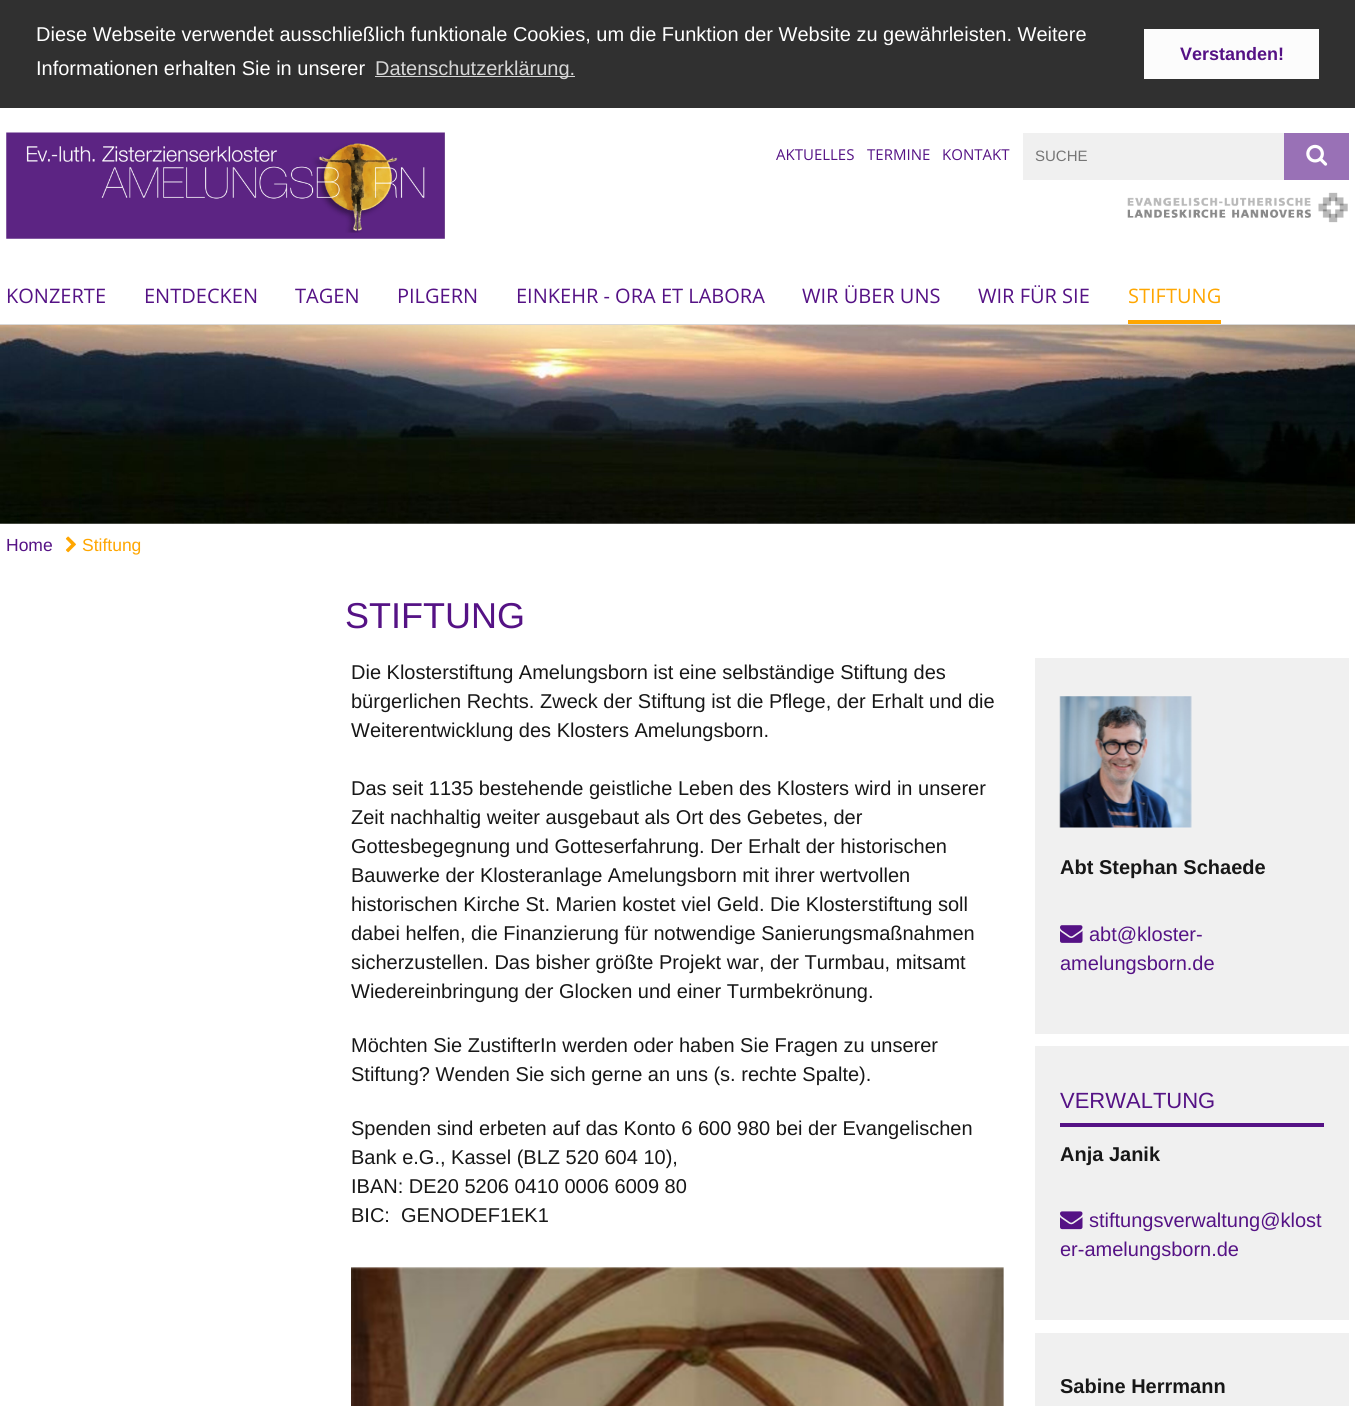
#include <cairo.h>
#include <math.h>
#include <stddef.h>

typedef struct { double x, y; const char *s; } line_t;

static void ink(cairo_t *ctx, unsigned color) {
    cairo_set_source_rgb(ctx, (color >> 16) / 255.0, (color >> 8 & 255) / 255.0, (color & 255) / 255.0);
}

static void paste(cairo_t *ctx, const char *path, double x, double y, double w, double h) {
    cairo_surface_t *image = cairo_image_surface_create_from_png(path);
    cairo_save(ctx);
    cairo_set_source_surface(ctx, image, x, y);
    cairo_rectangle(ctx, x, y, w, h);
    cairo_fill(ctx);
    cairo_restore(ctx);
    cairo_surface_destroy(image);
}

int main(void) {
    cairo_surface_t *surface = cairo_image_surface_create(CAIRO_FORMAT_RGB24, 1355, 1406);
    cairo_t *ctx = cairo_create(surface);
    cairo_font_options_t *options = cairo_font_options_create();
    cairo_font_options_set_hint_metrics(options, CAIRO_HINT_METRICS_OFF);
    cairo_font_options_set_hint_style(options, CAIRO_HINT_STYLE_NONE);
    cairo_set_font_options(ctx, options);
    cairo_set_miter_limit(ctx, 4);
    ink(ctx, 0xFFFFFF);
    cairo_paint(ctx);
    ink(ctx, 0x303030);
    cairo_rectangle(ctx, 0, 0, 1355, 108);
    cairo_fill(ctx);
    cairo_select_font_face(ctx, "Liberation Sans", CAIRO_FONT_SLANT_NORMAL, CAIRO_FONT_WEIGHT_NORMAL);
    cairo_set_font_size(ctx, 20);
    ink(ctx, 0xFFFFFF);
    cairo_move_to(ctx, 36, 41);
    cairo_show_text(ctx, "Diese Webseite verwendet ausschließlich funktionale Cookies, um die Funktion der Website zu gewährleisten. Weitere");
    cairo_move_to(ctx, 36, 75);
    cairo_show_text(ctx, "Informationen erhalten Sie in unserer");
    ink(ctx, 0xD6D6D6);
    cairo_rectangle(ctx, 375, 76, 200, 1);
    cairo_fill(ctx);
    cairo_move_to(ctx, 375, 75);
    cairo_show_text(ctx, "Datenschutzerklärung.");
    ink(ctx, 0xFCFCFC);
    cairo_rectangle(ctx, 1144, 29, 175, 50);
    cairo_fill(ctx);
    cairo_select_font_face(ctx, "Liberation Sans", CAIRO_FONT_SLANT_NORMAL, CAIRO_FONT_WEIGHT_BOLD);
    cairo_set_font_size(ctx, 18);
    ink(ctx, 0x551285);
    cairo_move_to(ctx, 1180, 60);
    cairo_show_text(ctx, "Verstanden!");
    ink(ctx, 0xD8D8D8);
    cairo_rectangle(ctx, 0, 324, 1355, 1);
    cairo_fill(ctx);
    paste(ctx, "media/1.png", 6, 132, 439, 107);
    cairo_select_font_face(ctx, "Open Sans", CAIRO_FONT_SLANT_NORMAL, CAIRO_FONT_WEIGHT_NORMAL);
    cairo_set_font_size(ctx, 15);
    ink(ctx, 0x551285);
    {
        static const line_t items[] = {
            {776, 160, "AKTUELLES"},
            {867, 160, "TERMINE"},
            {942, 160, "KONTAKT"},
        };
        for (size_t i = 0; i < sizeof items / sizeof *items; i++) {
            cairo_move_to(ctx, items[i].x, items[i].y);
            cairo_show_text(ctx, items[i].s);
        }
    }
    ink(ctx, 0xF0F0F0);
    cairo_rectangle(ctx, 1023, 133, 261, 47);
    cairo_fill(ctx);
    cairo_select_font_face(ctx, "Liberation Sans", CAIRO_FONT_SLANT_NORMAL, CAIRO_FONT_WEIGHT_NORMAL);
    ink(ctx, 0x757575);
    cairo_move_to(ctx, 1035, 161);
    cairo_show_text(ctx, "SUCHE");
    ink(ctx, 0x9971B6);
    cairo_rectangle(ctx, 1284, 133, 65, 47);
    cairo_fill(ctx);
    paste(ctx, "media/2.png", 1306, 144, 22, 22);
    paste(ctx, "media/3.png", 1127, 192, 221, 31);
    cairo_select_font_face(ctx, "Open Sans", CAIRO_FONT_SLANT_NORMAL, CAIRO_FONT_WEIGHT_NORMAL);
    cairo_set_font_size(ctx, 20);
    ink(ctx, 0x551285);
    {
        static const line_t items[] = {
            {6, 303, "KONZERTE"},
            {144, 303, "ENTDECKEN"},
            {295, 303, "TAGEN"},
            {397, 303, "PILGERN"},
            {516, 303, "EINKEHR - ORA ET LABORA"},
            {802, 303, "WIR ÜBER UNS"},
            {978, 303, "WIR FÜR SIE"},
        };
        for (size_t i = 0; i < sizeof items / sizeof *items; i++) {
            cairo_move_to(ctx, items[i].x, items[i].y);
            cairo_show_text(ctx, items[i].s);
        }
    }
    ink(ctx, 0xFFA600);
    cairo_rectangle(ctx, 1128, 320, 93, 4);
    cairo_fill(ctx);
    cairo_move_to(ctx, 1128, 303);
    cairo_show_text(ctx, "STIFTUNG");
    paste(ctx, "media/4.png", 0, 325, 1355, 199);
    cairo_select_font_face(ctx, "Liberation Sans", CAIRO_FONT_SLANT_NORMAL, CAIRO_FONT_WEIGHT_NORMAL);
    cairo_set_font_size(ctx, 17.5);
    ink(ctx, 0x551285);
    cairo_move_to(ctx, 6, 551);
    cairo_show_text(ctx, "Home");
    paste(ctx, "media/5.png", 65, 536, 11, 17);
    ink(ctx, 0xFFA600);
    cairo_move_to(ctx, 82, 551);
    cairo_show_text(ctx, "Stiftung");
    cairo_set_font_size(ctx, 36);
    ink(ctx, 0x551285);
    cairo_move_to(ctx, 345, 628);
    cairo_show_text(ctx, "STIFTUNG");
    cairo_set_font_size(ctx, 20);
    ink(ctx, 0x171717);
    {
        static const line_t items[] = {
            {351, 679, "Die Klosterstiftung Amelungsborn ist eine selbständige Stiftung des"},
            {351, 708, "bürgerlichen Rechts. Zweck der Stiftung ist die Pflege, der Erhalt und die"},
            {351, 737, "Weiterentwicklung des Klosters Amelungsborn."},
            {351, 795, "Das seit 1135 bestehende geistliche Leben des Klosters wird in unserer"},
            {351, 824, "Zeit nachhaltig weiter ausgebaut als Ort des Gebetes, der"},
            {351, 853, "Gottesbegegnung und Gotteserfahrung. Der Erhalt der historischen"},
            {351, 882, "Bauwerke der Klosteranlage Amelungsborn mit ihrer wertvollen"},
            {351, 911, "historischen Kirche St. Marien kostet viel Geld. Die Klosterstiftung soll"},
            {351, 940, "dabei helfen, die Finanzierung für notwendige Sanierungsmaßnahmen"},
            {351, 969, "sicherzustellen. Das bisher größte Projekt war, der Turmbau, mitsamt"},
            {351, 998, "Wiedereinbringung der Glocken und einer Turmbekrönung."},
            {351, 1052, "Möchten Sie ZustifterIn werden oder haben Sie Fragen zu unserer"},
            {351, 1081, "Stiftung? Wenden Sie sich gerne an uns (s. rechte Spalte)."},
            {351, 1135, "Spenden sind erbeten auf das Konto 6 600 980 bei der Evangelischen"},
            {351, 1164, "Bank e.G., Kassel (BLZ 520 604 10),"},
            {351, 1193, "IBAN: DE20 5206 0410 0006 6009 80"},
            {351, 1222, "BIC:  GENODEF1EK1"},
        };
        for (size_t i = 0; i < sizeof items / sizeof *items; i++) {
            cairo_move_to(ctx, items[i].x, items[i].y);
            cairo_show_text(ctx, items[i].s);
        }
    }
    paste(ctx, "media/6.png", 351, 1267, 653, 139);
    ink(ctx, 0xF0F0F0);
    cairo_rectangle(ctx, 1035, 658, 314, 376);
    cairo_fill(ctx);
    paste(ctx, "media/7.png", 1059, 696, 133, 132);
    cairo_select_font_face(ctx, "Liberation Sans", CAIRO_FONT_SLANT_NORMAL, CAIRO_FONT_WEIGHT_BOLD);
    ink(ctx, 0x171717);
    cairo_move_to(ctx, 1060, 874);
    cairo_show_text(ctx, "Abt Stephan Schaede");
    paste(ctx, "media/8.png", 1060, 925, 23, 18);
    cairo_select_font_face(ctx, "Liberation Sans", CAIRO_FONT_SLANT_NORMAL, CAIRO_FONT_WEIGHT_NORMAL);
    ink(ctx, 0x551285);
    cairo_move_to(ctx, 1089, 941);
    cairo_show_text(ctx, "abt@kloster-");
    cairo_move_to(ctx, 1060, 970);
    cairo_show_text(ctx, "amelungsborn.de");
    ink(ctx, 0xF0F0F0);
    cairo_rectangle(ctx, 1035, 1046, 314, 274);
    cairo_fill(ctx);
    ink(ctx, 0x551285);
    cairo_rectangle(ctx, 1060, 1123, 264, 4);
    cairo_fill(ctx);
    cairo_set_font_size(ctx, 22);
    cairo_move_to(ctx, 1060, 1108);
    cairo_show_text(ctx, "VERWALTUNG");
    cairo_select_font_face(ctx, "Liberation Sans", CAIRO_FONT_SLANT_NORMAL, CAIRO_FONT_WEIGHT_BOLD);
    cairo_set_font_size(ctx, 20);
    ink(ctx, 0x171717);
    cairo_move_to(ctx, 1060, 1161);
    cairo_show_text(ctx, "Anja Janik");
    paste(ctx, "media/9.png", 1060, 1211, 23, 19);
    cairo_select_font_face(ctx, "Liberation Sans", CAIRO_FONT_SLANT_NORMAL, CAIRO_FONT_WEIGHT_NORMAL);
    ink(ctx, 0x551285);
    cairo_move_to(ctx, 1089, 1227);
    cairo_show_text(ctx, "stiftungsverwaltung@klost");
    cairo_move_to(ctx, 1060, 1256);
    cairo_show_text(ctx, "er-amelungsborn.de");
    ink(ctx, 0xF0F0F0);
    cairo_rectangle(ctx, 1035, 1333, 314, 73);
    cairo_fill(ctx);
    cairo_select_font_face(ctx, "Liberation Sans", CAIRO_FONT_SLANT_NORMAL, CAIRO_FONT_WEIGHT_BOLD);
    ink(ctx, 0x171717);
    cairo_move_to(ctx, 1060, 1393);
    cairo_show_text(ctx, "Sabine Herrmann");
    cairo_surface_write_to_png(surface, "image.png");
    cairo_font_options_destroy(options);
    cairo_destroy(ctx);
    cairo_surface_destroy(surface);
    return 0;
}
